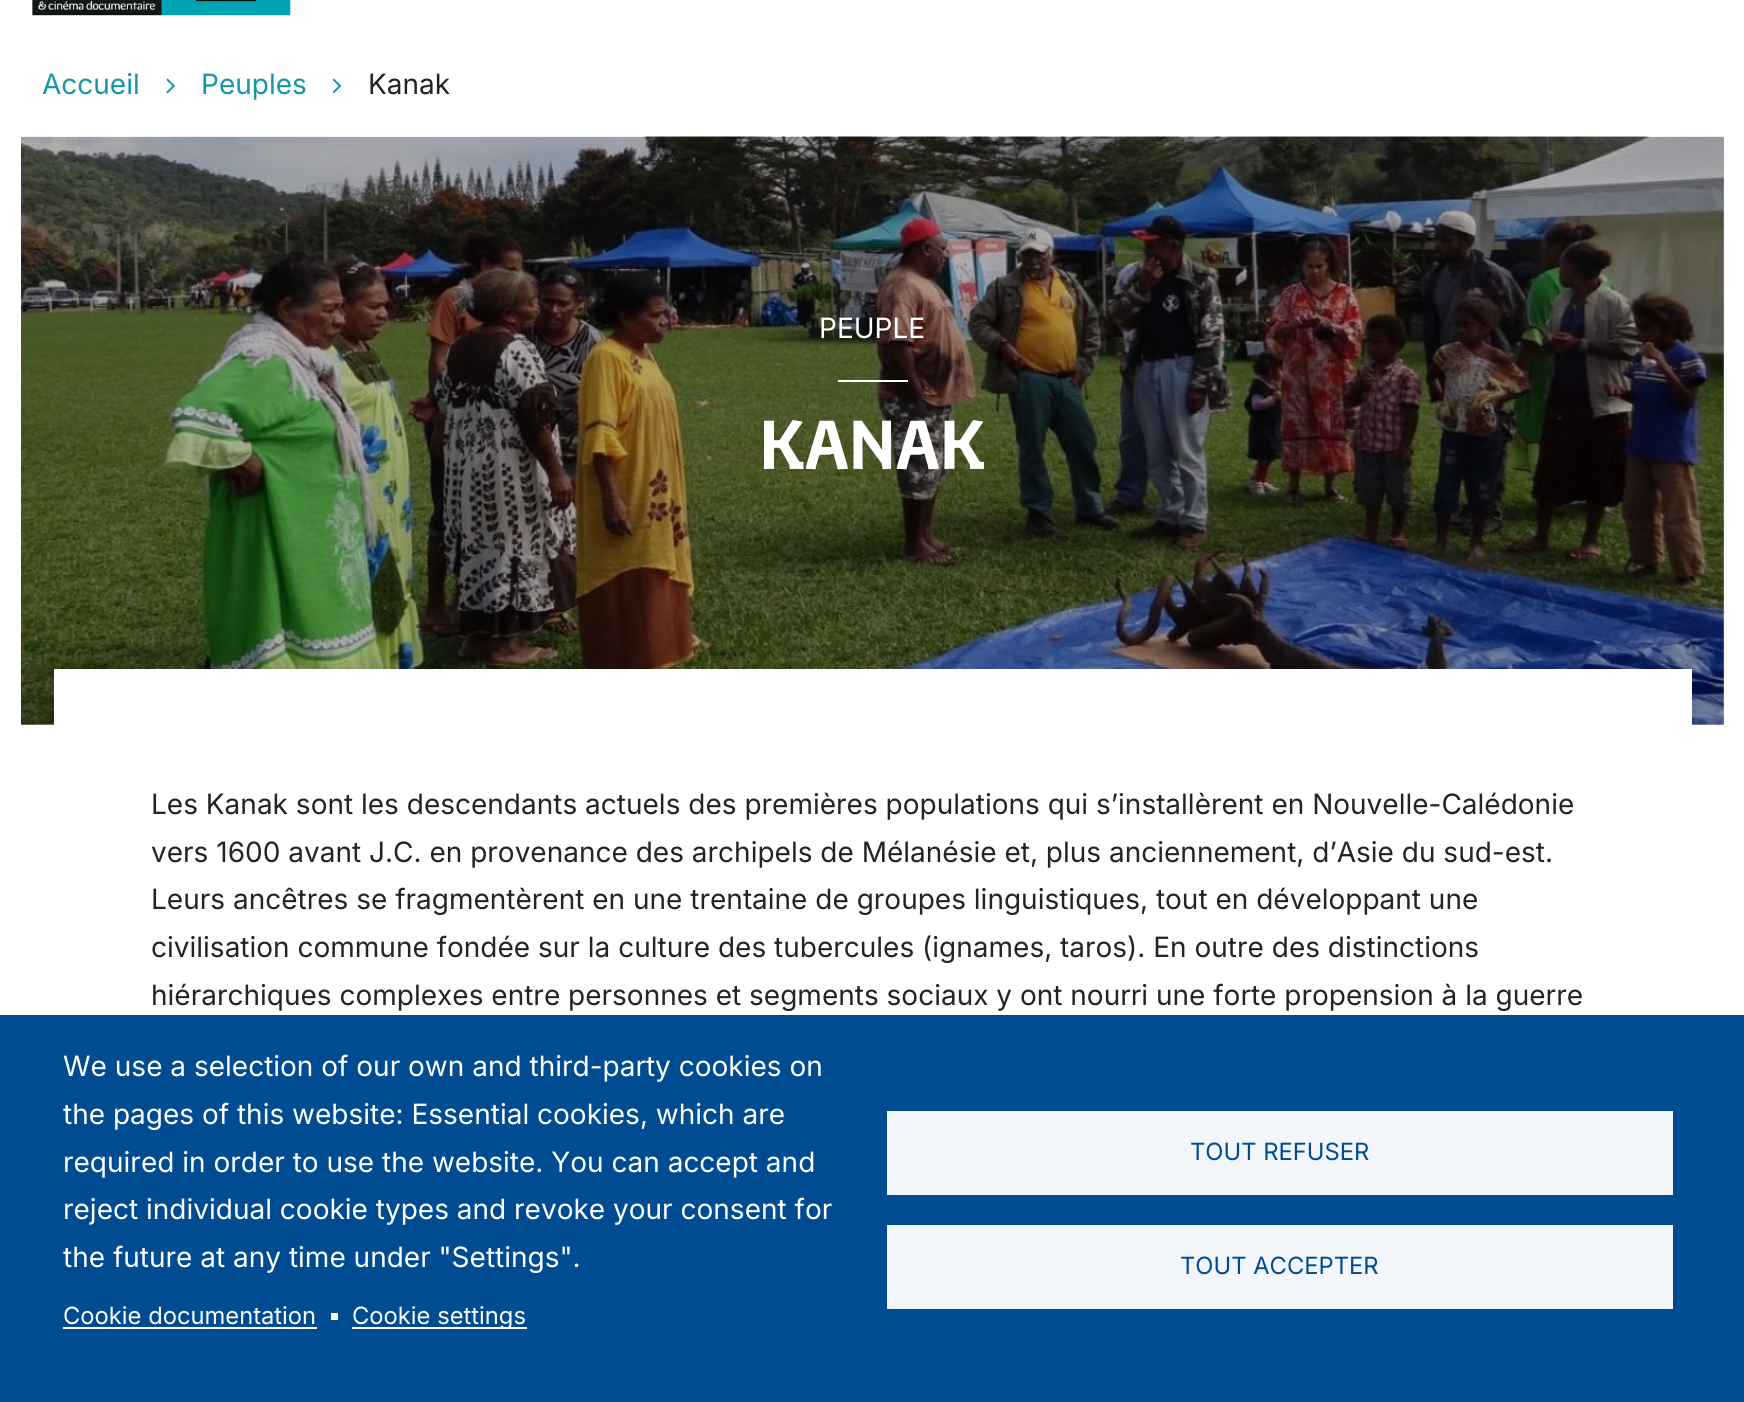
#include <cairo.h>
#include <math.h>
#include <stddef.h>

typedef struct { double x, y; const char *s; } line_t;
typedef struct { double x, y, w, h; unsigned color; } box_t;

static void ink(cairo_t *ctx, unsigned color) {
    cairo_set_source_rgb(ctx, (color >> 16) / 255.0, (color >> 8 & 255) / 255.0, (color & 255) / 255.0);
}

static void paste(cairo_t *ctx, const char *path, double x, double y, double w, double h) {
    cairo_surface_t *image = cairo_image_surface_create_from_png(path);
    cairo_save(ctx);
    cairo_set_source_surface(ctx, image, x, y);
    cairo_rectangle(ctx, x, y, w, h);
    cairo_fill(ctx);
    cairo_restore(ctx);
    cairo_surface_destroy(image);
}

int main(void) {
    cairo_surface_t *surface = cairo_image_surface_create(CAIRO_FORMAT_RGB24, 1744, 1402);
    cairo_t *ctx = cairo_create(surface);
    cairo_font_options_t *options = cairo_font_options_create();
    cairo_font_options_set_hint_metrics(options, CAIRO_HINT_METRICS_OFF);
    cairo_font_options_set_hint_style(options, CAIRO_HINT_STYLE_NONE);
    cairo_set_font_options(ctx, options);
    cairo_set_miter_limit(ctx, 4);
    ink(ctx, 0xFFFFFF);
    cairo_paint(ctx);
    ink(ctx, 0xB3B3B3);
    cairo_rectangle(ctx, 21, 137, 1703, 588);
    cairo_fill(ctx);
    paste(ctx, "media/1.png", 32, 0, 259, 18);
    cairo_select_font_face(ctx, "Inter", CAIRO_FONT_SLANT_NORMAL, CAIRO_FONT_WEIGHT_NORMAL);
    cairo_set_font_size(ctx, 28);
    ink(ctx, 0x1695AB);
    cairo_move_to(ctx, 42, 94);
    cairo_show_text(ctx, "Accueil");
    paste(ctx, "media/2.png", 166, 78, 9, 16);
    cairo_move_to(ctx, 201, 94);
    cairo_show_text(ctx, "Peuples");
    paste(ctx, "media/3.png", 332, 78, 10, 16);
    ink(ctx, 0x212529);
    cairo_move_to(ctx, 368, 94);
    cairo_show_text(ctx, "Kanak");
    paste(ctx, "media/4.png", 21, 136, 1703, 589);
    ink(ctx, 0xFFFFFF);
    cairo_move_to(ctx, 819, 338);
    cairo_show_text(ctx, "PEUPLE");
    cairo_rectangle(ctx, 838, 380, 70, 2);
    cairo_fill(ctx);
    cairo_select_font_face(ctx, "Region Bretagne", CAIRO_FONT_SLANT_NORMAL, CAIRO_FONT_WEIGHT_BOLD);
    cairo_set_font_size(ctx, 70);
    cairo_move_to(ctx, 759, 469);
    cairo_show_text(ctx, "KANAK");
    cairo_rectangle(ctx, 54, 669, 1638, 56);
    cairo_fill(ctx);
    cairo_select_font_face(ctx, "Inter", CAIRO_FONT_SLANT_NORMAL, CAIRO_FONT_WEIGHT_NORMAL);
    cairo_set_font_size(ctx, 28);
    ink(ctx, 0x212529);
    {
        static const line_t items[] = {
            {151, 814, "Les Kanak sont les descendants actuels des premières populations qui s’installèrent en Nouvelle-Calédonie"},
            {151, 862, "vers 1600 avant J.C. en provenance des archipels de Mélanésie et, plus anciennement, d’Asie du sud-est."},
            {151, 909, "Leurs ancêtres se fragmentèrent en une trentaine de groupes linguistiques, tout en développant une"},
            {151, 957, "civilisation commune fondée sur la culture des tubercules (ignames, taros). En outre des distinctions"},
            {151, 1005, "hiérarchiques complexes entre personnes et segments sociaux y ont nourri une forte propension à la guerre"},
        };
        for (size_t i = 0; i < sizeof items / sizeof *items; i++) {
            cairo_move_to(ctx, items[i].x, items[i].y);
            cairo_show_text(ctx, items[i].s);
        }
    }
    ink(ctx, 0x004C93);
    cairo_rectangle(ctx, 0, 1015, 1744, 387);
    cairo_fill(ctx);
    ink(ctx, 0xFFFFFF);
    {
        static const line_t items[] = {
            {63, 1076, "We use a selection of our own and third-party cookies on"},
            {63, 1124, "the pages of this website: Essential cookies, which are"},
            {63, 1172, "required in order to use the website. You can accept and"},
            {63, 1219, "reject individual cookie types and revoke your consent for"},
            {63, 1267, "the future at any time under \"Settings\"."},
        };
        for (size_t i = 0; i < sizeof items / sizeof *items; i++) {
            cairo_move_to(ctx, items[i].x, items[i].y);
            cairo_show_text(ctx, items[i].s);
        }
    }
    cairo_set_font_size(ctx, 23.75);
    cairo_move_to(ctx, 63, 1324);
    cairo_show_text(ctx, "Cookie documentation");
    {
        static const box_t items[] = {
            {63, 1327, 254, 2, 0xFFFFFF},
            {331, 1313, 7, 7, 0xFFFFFF},
            {352, 1327, 175, 2, 0xFFFFFF},
        };
        for (size_t i = 0; i < sizeof items / sizeof *items; i++) {
            ink(ctx, items[i].color);
            cairo_rectangle(ctx, items[i].x, items[i].y, items[i].w, items[i].h);
            cairo_fill(ctx);
        }
    }
    cairo_move_to(ctx, 352, 1324);
    cairo_show_text(ctx, "Cookie settings");
    ink(ctx, 0xF2F6FA);
    cairo_rectangle(ctx, 887, 1111, 786, 84);
    cairo_fill(ctx);
    ink(ctx, 0x004C93);
    cairo_move_to(ctx, 1190, 1160);
    cairo_show_text(ctx, "TOUT REFUSER");
    ink(ctx, 0xF2F6FA);
    cairo_rectangle(ctx, 887, 1225, 786, 84);
    cairo_fill(ctx);
    ink(ctx, 0x004C93);
    cairo_move_to(ctx, 1180, 1274);
    cairo_show_text(ctx, "TOUT ACCEPTER");
    cairo_surface_write_to_png(surface, "image.png");
    cairo_font_options_destroy(options);
    cairo_destroy(ctx);
    cairo_surface_destroy(surface);
    return 0;
}
